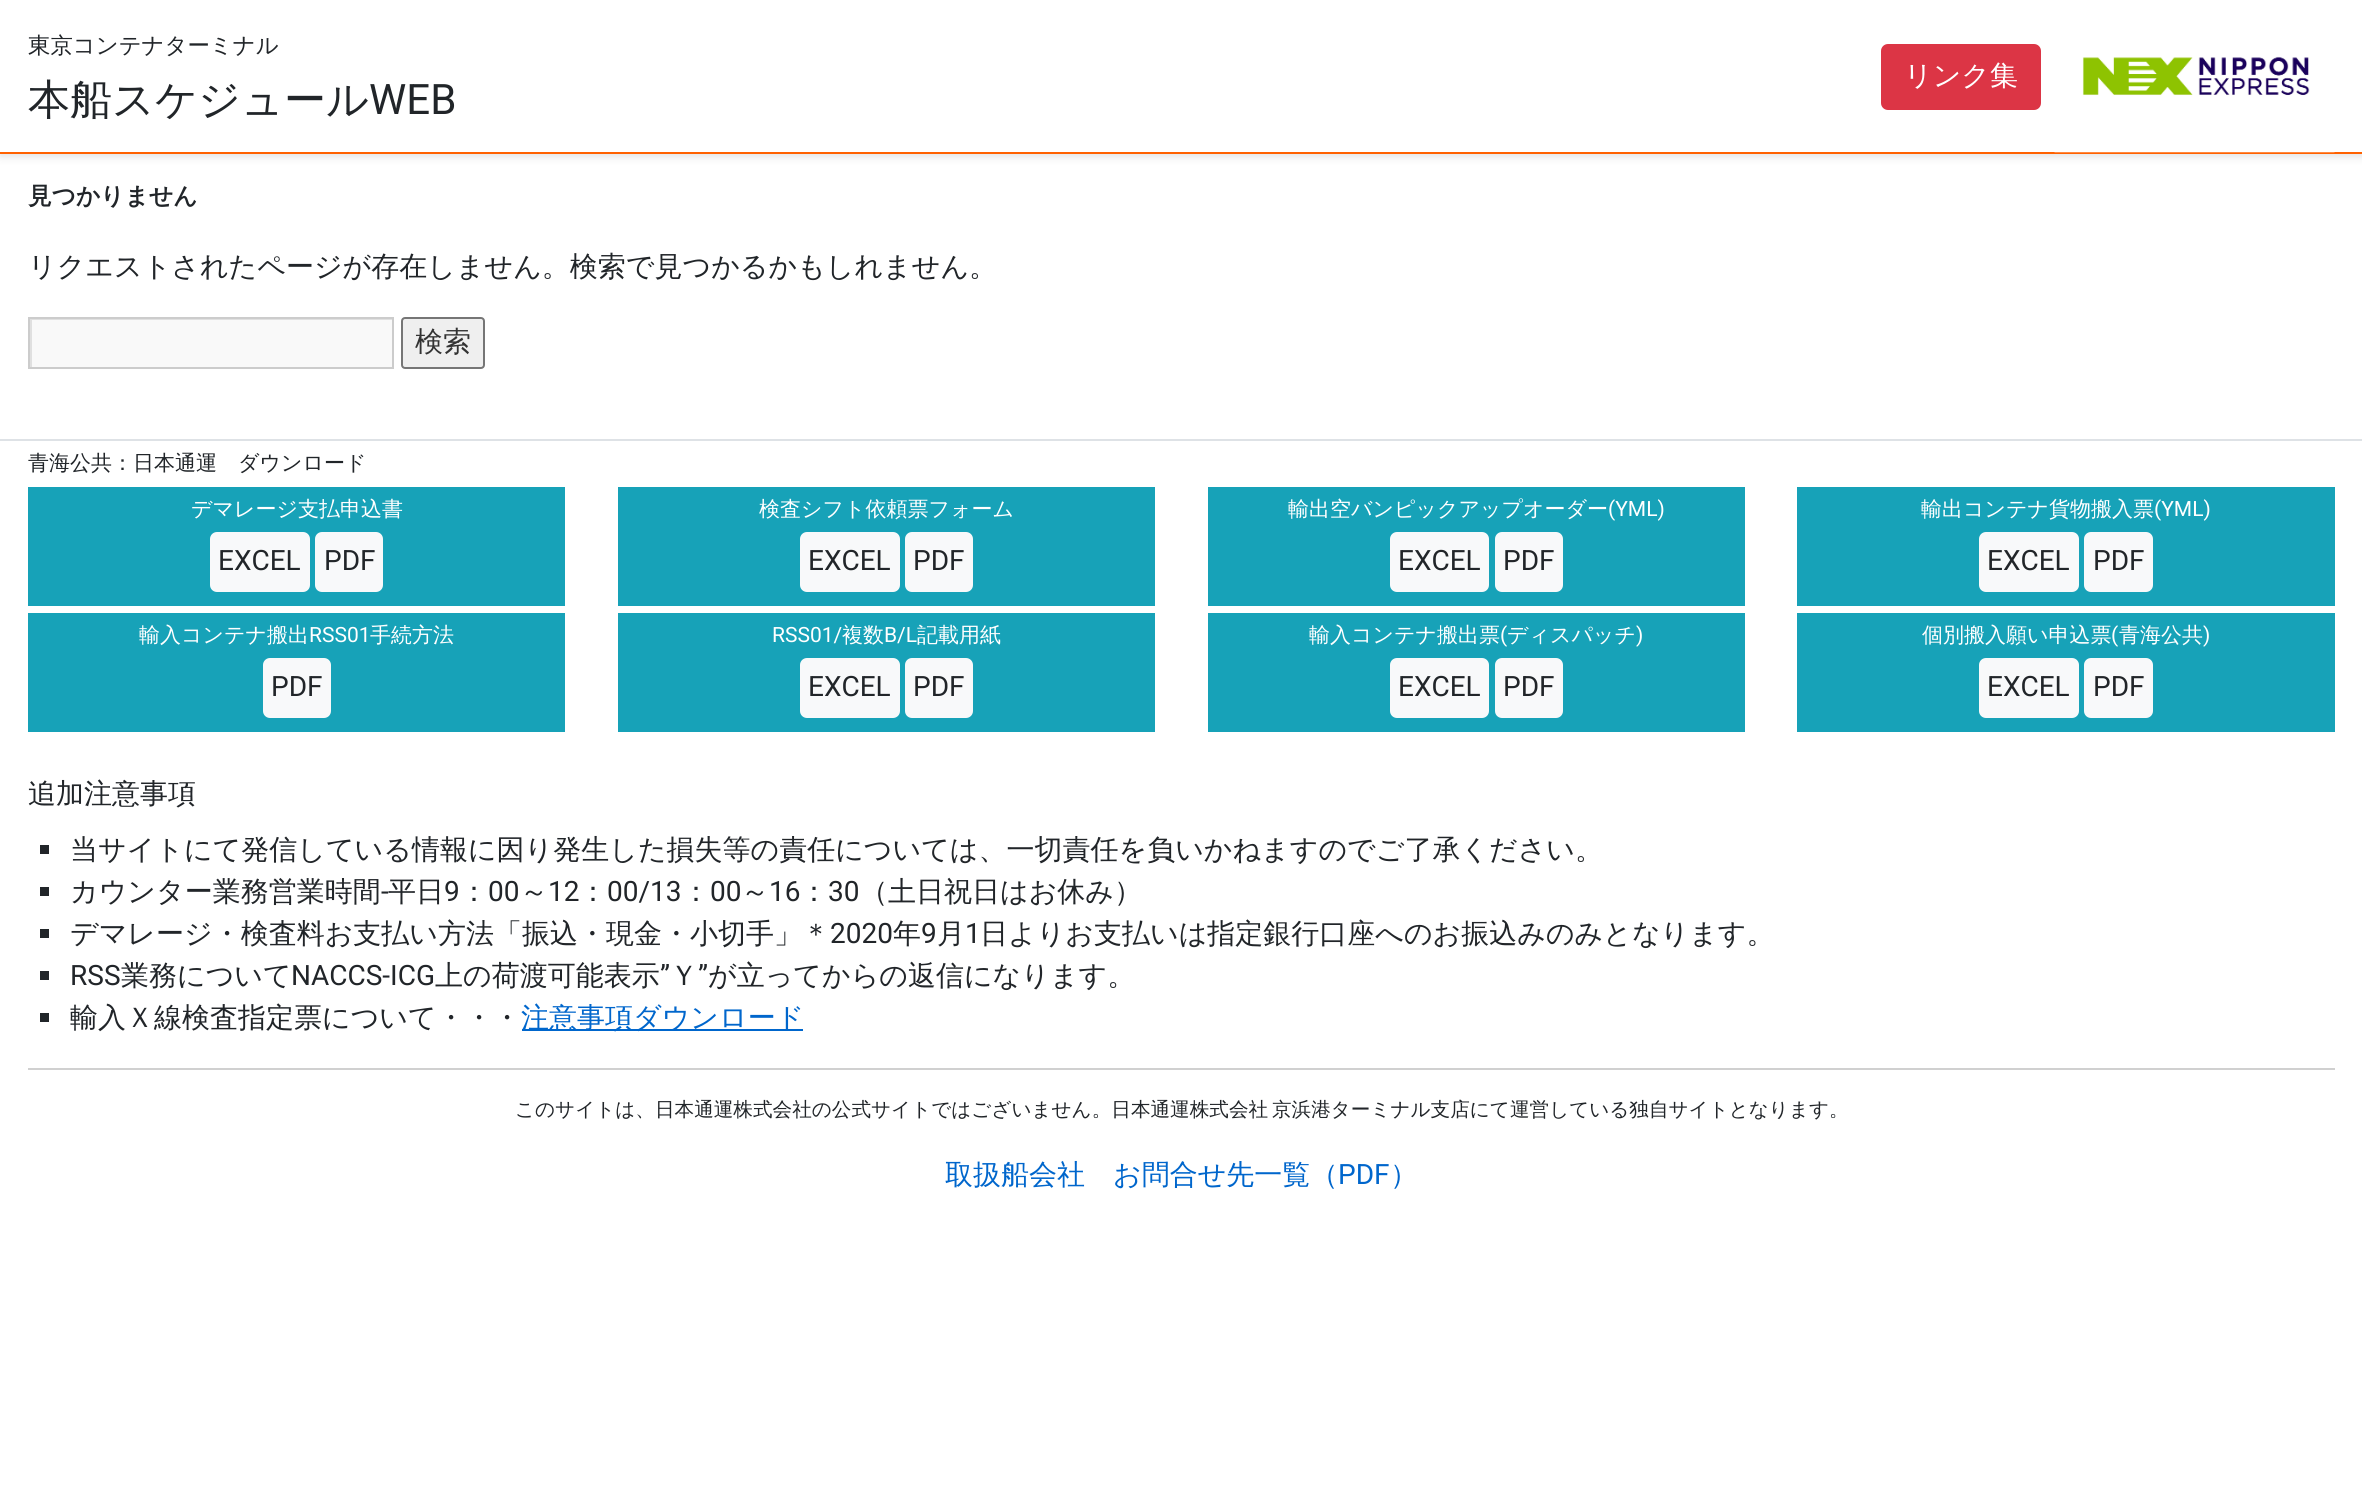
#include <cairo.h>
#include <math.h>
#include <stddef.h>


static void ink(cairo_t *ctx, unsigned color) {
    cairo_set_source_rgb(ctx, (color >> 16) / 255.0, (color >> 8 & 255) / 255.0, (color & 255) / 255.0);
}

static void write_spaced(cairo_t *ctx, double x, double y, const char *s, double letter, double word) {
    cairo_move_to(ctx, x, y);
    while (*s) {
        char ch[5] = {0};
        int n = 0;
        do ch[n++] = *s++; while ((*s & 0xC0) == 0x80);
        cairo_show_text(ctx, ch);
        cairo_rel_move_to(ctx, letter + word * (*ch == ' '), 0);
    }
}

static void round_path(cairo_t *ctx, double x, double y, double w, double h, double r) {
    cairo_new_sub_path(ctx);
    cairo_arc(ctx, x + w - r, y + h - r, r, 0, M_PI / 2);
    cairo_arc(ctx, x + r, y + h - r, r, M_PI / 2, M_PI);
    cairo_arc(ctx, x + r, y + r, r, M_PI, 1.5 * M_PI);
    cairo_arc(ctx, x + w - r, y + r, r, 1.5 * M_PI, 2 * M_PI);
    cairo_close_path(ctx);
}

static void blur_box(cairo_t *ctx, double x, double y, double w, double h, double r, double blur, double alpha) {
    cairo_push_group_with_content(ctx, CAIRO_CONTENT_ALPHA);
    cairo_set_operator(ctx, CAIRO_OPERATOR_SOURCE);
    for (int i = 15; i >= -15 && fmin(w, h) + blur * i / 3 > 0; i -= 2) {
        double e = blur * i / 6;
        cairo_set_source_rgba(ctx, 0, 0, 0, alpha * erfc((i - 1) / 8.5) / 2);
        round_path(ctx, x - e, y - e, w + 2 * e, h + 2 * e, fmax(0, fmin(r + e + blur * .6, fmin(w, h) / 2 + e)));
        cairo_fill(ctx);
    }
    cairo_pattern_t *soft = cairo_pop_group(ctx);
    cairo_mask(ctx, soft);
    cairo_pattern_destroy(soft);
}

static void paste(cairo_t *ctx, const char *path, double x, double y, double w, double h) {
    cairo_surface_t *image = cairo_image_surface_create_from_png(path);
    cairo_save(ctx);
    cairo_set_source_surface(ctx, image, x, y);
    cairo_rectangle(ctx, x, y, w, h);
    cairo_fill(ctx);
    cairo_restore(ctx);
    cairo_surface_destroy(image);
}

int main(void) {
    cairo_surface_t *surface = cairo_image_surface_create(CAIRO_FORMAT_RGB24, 2362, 1506);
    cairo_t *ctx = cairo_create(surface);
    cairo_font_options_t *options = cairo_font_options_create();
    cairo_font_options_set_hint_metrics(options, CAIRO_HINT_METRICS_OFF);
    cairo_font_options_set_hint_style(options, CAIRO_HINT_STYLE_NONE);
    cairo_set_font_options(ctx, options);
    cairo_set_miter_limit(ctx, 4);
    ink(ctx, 0xFFFFFF);
    cairo_paint(ctx);
    cairo_save(ctx);
    cairo_rectangle(ctx, 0, 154, 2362, 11);
    cairo_clip(ctx);
    ink(ctx, 0xDDDDDD);
    blur_box(ctx, 0, -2, 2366, 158, 0, 4.5, 1);
    cairo_restore(ctx);
    ink(ctx, 0xFF6100);
    cairo_rectangle(ctx, 0, 152, 2362, 2);
    cairo_fill(ctx);
    cairo_select_font_face(ctx, "WenQuanYi Zen Hei Medium", CAIRO_FONT_SLANT_NORMAL, CAIRO_FONT_WEIGHT_NORMAL);
    cairo_set_font_size(ctx, 22.4);
    ink(ctx, 0x212529);
    cairo_move_to(ctx, 28, 53);
    cairo_show_text(ctx, "東京コンテナターミナル");
    cairo_set_font_size(ctx, 42);
    cairo_move_to(ctx, 28, 114);
    cairo_show_text(ctx, "本船スケジュール");
    cairo_select_font_face(ctx, "Roboto", CAIRO_FONT_SLANT_NORMAL, CAIRO_FONT_WEIGHT_NORMAL);
    cairo_move_to(ctx, 369, 114);
    cairo_show_text(ctx, "WEB");
    ink(ctx, 0xDC3545);
    round_path(ctx, 1882, 45, 158, 64, 6);
    cairo_fill_preserve(ctx);
    cairo_stroke(ctx);
    cairo_select_font_face(ctx, "WenQuanYi Zen Hei Medium", CAIRO_FONT_SLANT_NORMAL, CAIRO_FONT_WEIGHT_NORMAL);
    cairo_set_font_size(ctx, 28);
    ink(ctx, 0xFFFFFF);
    cairo_move_to(ctx, 1904, 85);
    cairo_show_text(ctx, "リンク集");
    paste(ctx, "media/1.png", 2054, 56, 281, 97);
    cairo_select_font_face(ctx, "WenQuanYi Zen Hei", CAIRO_FONT_SLANT_NORMAL, CAIRO_FONT_WEIGHT_BOLD);
    cairo_set_font_size(ctx, 23.75);
    ink(ctx, 0x212529);
    cairo_move_to(ctx, 28, 204);
    cairo_show_text(ctx, "見つかりません");
    cairo_select_font_face(ctx, "WenQuanYi Zen Hei Medium", CAIRO_FONT_SLANT_NORMAL, CAIRO_FONT_WEIGHT_NORMAL);
    cairo_set_font_size(ctx, 28);
    cairo_move_to(ctx, 28, 276);
    cairo_show_text(ctx, "リクエストされたページが存在しません。検索で見つかるかもしれません。");
    ink(ctx, 0xF9F9F9);
    cairo_rectangle(ctx, 32, 320, 360, 47);
    cairo_fill(ctx);
    cairo_save(ctx);
    cairo_rectangle(ctx, 30, 319, 362, 49);
    cairo_clip(ctx);
    ink(ctx, 0xE0E0E0);
    cairo_set_fill_rule(ctx, CAIRO_FILL_RULE_EVEN_ODD);
    cairo_new_path(ctx);
    cairo_move_to(ctx, -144, 145);
    cairo_line_to(ctx, 565, 145);
    cairo_line_to(ctx, 565, 541);
    cairo_line_to(ctx, -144, 541);
    cairo_close_path(ctx);
    cairo_move_to(ctx, 32, 320);
    cairo_line_to(ctx, 394, 320);
    cairo_line_to(ctx, 394, 369);
    cairo_line_to(ctx, 32, 369);
    cairo_close_path(ctx);
    cairo_fill(ctx);
    cairo_restore(ctx);
    cairo_rectangle(ctx, 29, 318, 364, 50);
    ink(ctx, 0xCCCCCC);
    cairo_stroke(ctx);
    ink(ctx, 0xEFEFEF);
    round_path(ctx, 402, 318, 82, 50, 3);
    cairo_fill_preserve(ctx);
    ink(ctx, 0x767676);
    cairo_stroke(ctx);
    ink(ctx, 0x333333);
    cairo_move_to(ctx, 415, 351);
    cairo_show_text(ctx, "検索");
    ink(ctx, 0xDEE2E6);
    cairo_rectangle(ctx, 0, 439, 2362, 2);
    cairo_fill(ctx);
    cairo_set_font_size(ctx, 21);
    ink(ctx, 0x212529);
    cairo_move_to(ctx, 28, 470);
    cairo_show_text(ctx, "青海公共：日本通運　ダウンロード");
    ink(ctx, 0x17A2B8);
    cairo_rectangle(ctx, 28, 487, 537, 119);
    cairo_fill(ctx);
    ink(ctx, 0xFFFFFF);
    cairo_move_to(ctx, 191, 516);
    cairo_show_text(ctx, "デマレージ支払申込書");
    ink(ctx, 0xF8F9FA);
    round_path(ctx, 211, 533, 98, 58, 6);
    cairo_fill_preserve(ctx);
    cairo_stroke(ctx);
    cairo_select_font_face(ctx, "Roboto", CAIRO_FONT_SLANT_NORMAL, CAIRO_FONT_WEIGHT_NORMAL);
    cairo_set_font_size(ctx, 28);
    ink(ctx, 0x212529);
    cairo_move_to(ctx, 218, 570);
    cairo_show_text(ctx, "EXCEL");
    ink(ctx, 0xF8F9FA);
    round_path(ctx, 316, 533, 66, 58, 6);
    cairo_fill_preserve(ctx);
    cairo_stroke(ctx);
    ink(ctx, 0x212529);
    cairo_move_to(ctx, 324, 570);
    cairo_show_text(ctx, "PDF");
    ink(ctx, 0x17A2B8);
    cairo_rectangle(ctx, 618, 487, 537, 119);
    cairo_fill(ctx);
    cairo_select_font_face(ctx, "WenQuanYi Zen Hei Medium", CAIRO_FONT_SLANT_NORMAL, CAIRO_FONT_WEIGHT_NORMAL);
    cairo_set_font_size(ctx, 21);
    ink(ctx, 0xFFFFFF);
    cairo_move_to(ctx, 759, 516);
    cairo_show_text(ctx, "検査シフト依頼票フォーム");
    ink(ctx, 0xF8F9FA);
    round_path(ctx, 801, 533, 98, 58, 6);
    cairo_fill_preserve(ctx);
    cairo_stroke(ctx);
    cairo_select_font_face(ctx, "Roboto", CAIRO_FONT_SLANT_NORMAL, CAIRO_FONT_WEIGHT_NORMAL);
    cairo_set_font_size(ctx, 28);
    ink(ctx, 0x212529);
    cairo_move_to(ctx, 808, 570);
    cairo_show_text(ctx, "EXCEL");
    ink(ctx, 0xF8F9FA);
    round_path(ctx, 906, 533, 66, 58, 6);
    cairo_fill_preserve(ctx);
    cairo_stroke(ctx);
    ink(ctx, 0x212529);
    cairo_move_to(ctx, 913, 570);
    cairo_show_text(ctx, "PDF");
    ink(ctx, 0x17A2B8);
    cairo_rectangle(ctx, 1208, 487, 537, 119);
    cairo_fill(ctx);
    cairo_select_font_face(ctx, "WenQuanYi Zen Hei Medium", CAIRO_FONT_SLANT_NORMAL, CAIRO_FONT_WEIGHT_NORMAL);
    cairo_set_font_size(ctx, 21);
    ink(ctx, 0xFFFFFF);
    cairo_move_to(ctx, 1288, 516);
    cairo_show_text(ctx, "輸出空バンピックアップオーダー");
    cairo_select_font_face(ctx, "Roboto", CAIRO_FONT_SLANT_NORMAL, CAIRO_FONT_WEIGHT_NORMAL);
    cairo_move_to(ctx, 1608, 516);
    cairo_show_text(ctx, "(YML)");
    ink(ctx, 0xF8F9FA);
    round_path(ctx, 1391, 533, 97, 58, 6);
    cairo_fill_preserve(ctx);
    cairo_stroke(ctx);
    cairo_set_font_size(ctx, 28);
    ink(ctx, 0x212529);
    cairo_move_to(ctx, 1398, 570);
    cairo_show_text(ctx, "EXCEL");
    ink(ctx, 0xF8F9FA);
    round_path(ctx, 1496, 533, 66, 58, 6);
    cairo_fill_preserve(ctx);
    cairo_stroke(ctx);
    ink(ctx, 0x212529);
    cairo_move_to(ctx, 1503, 570);
    cairo_show_text(ctx, "PDF");
    ink(ctx, 0x17A2B8);
    cairo_rectangle(ctx, 1797, 487, 538, 119);
    cairo_fill(ctx);
    cairo_select_font_face(ctx, "WenQuanYi Zen Hei Medium", CAIRO_FONT_SLANT_NORMAL, CAIRO_FONT_WEIGHT_NORMAL);
    cairo_set_font_size(ctx, 21);
    ink(ctx, 0xFFFFFF);
    cairo_move_to(ctx, 1921, 516);
    cairo_show_text(ctx, "輸出コンテナ貨物搬入票");
    cairo_select_font_face(ctx, "Roboto", CAIRO_FONT_SLANT_NORMAL, CAIRO_FONT_WEIGHT_NORMAL);
    cairo_move_to(ctx, 2154, 516);
    cairo_show_text(ctx, "(YML)");
    ink(ctx, 0xF8F9FA);
    round_path(ctx, 1980, 533, 98, 58, 6);
    cairo_fill_preserve(ctx);
    cairo_stroke(ctx);
    cairo_set_font_size(ctx, 28);
    ink(ctx, 0x212529);
    cairo_move_to(ctx, 1987, 570);
    cairo_show_text(ctx, "EXCEL");
    ink(ctx, 0xF8F9FA);
    round_path(ctx, 2085, 533, 67, 58, 6);
    cairo_fill_preserve(ctx);
    cairo_stroke(ctx);
    ink(ctx, 0x212529);
    cairo_move_to(ctx, 2093, 570);
    cairo_show_text(ctx, "PDF");
    ink(ctx, 0x17A2B8);
    cairo_rectangle(ctx, 28, 613, 537, 119);
    cairo_fill(ctx);
    cairo_select_font_face(ctx, "WenQuanYi Zen Hei Medium", CAIRO_FONT_SLANT_NORMAL, CAIRO_FONT_WEIGHT_NORMAL);
    cairo_set_font_size(ctx, 21);
    ink(ctx, 0xFFFFFF);
    cairo_move_to(ctx, 139, 642);
    cairo_show_text(ctx, "輸入コンテナ搬出");
    cairo_select_font_face(ctx, "Roboto", CAIRO_FONT_SLANT_NORMAL, CAIRO_FONT_WEIGHT_NORMAL);
    cairo_move_to(ctx, 309, 642);
    cairo_show_text(ctx, "RSS01");
    cairo_select_font_face(ctx, "WenQuanYi Zen Hei Medium", CAIRO_FONT_SLANT_NORMAL, CAIRO_FONT_WEIGHT_NORMAL);
    cairo_move_to(ctx, 370, 642);
    cairo_show_text(ctx, "手続方法");
    ink(ctx, 0xF8F9FA);
    round_path(ctx, 264, 659, 66, 58, 6);
    cairo_fill_preserve(ctx);
    cairo_stroke(ctx);
    cairo_select_font_face(ctx, "Roboto", CAIRO_FONT_SLANT_NORMAL, CAIRO_FONT_WEIGHT_NORMAL);
    cairo_set_font_size(ctx, 28);
    ink(ctx, 0x212529);
    cairo_move_to(ctx, 271, 696);
    cairo_show_text(ctx, "PDF");
    ink(ctx, 0x17A2B8);
    cairo_rectangle(ctx, 618, 613, 537, 119);
    cairo_fill(ctx);
    cairo_set_font_size(ctx, 21);
    ink(ctx, 0xFFFFFF);
    cairo_move_to(ctx, 772, 642);
    cairo_show_text(ctx, "RSS01/");
    cairo_select_font_face(ctx, "WenQuanYi Zen Hei Medium", CAIRO_FONT_SLANT_NORMAL, CAIRO_FONT_WEIGHT_NORMAL);
    cairo_move_to(ctx, 842, 642);
    cairo_show_text(ctx, "複数");
    cairo_select_font_face(ctx, "Roboto", CAIRO_FONT_SLANT_NORMAL, CAIRO_FONT_WEIGHT_NORMAL);
    cairo_move_to(ctx, 884, 642);
    cairo_show_text(ctx, "B/L");
    cairo_select_font_face(ctx, "WenQuanYi Zen Hei Medium", CAIRO_FONT_SLANT_NORMAL, CAIRO_FONT_WEIGHT_NORMAL);
    cairo_move_to(ctx, 917, 642);
    cairo_show_text(ctx, "記載用紙");
    ink(ctx, 0xF8F9FA);
    round_path(ctx, 801, 659, 98, 58, 6);
    cairo_fill_preserve(ctx);
    cairo_stroke(ctx);
    cairo_select_font_face(ctx, "Roboto", CAIRO_FONT_SLANT_NORMAL, CAIRO_FONT_WEIGHT_NORMAL);
    cairo_set_font_size(ctx, 28);
    ink(ctx, 0x212529);
    cairo_move_to(ctx, 808, 696);
    cairo_show_text(ctx, "EXCEL");
    ink(ctx, 0xF8F9FA);
    round_path(ctx, 906, 659, 66, 58, 6);
    cairo_fill_preserve(ctx);
    cairo_stroke(ctx);
    ink(ctx, 0x212529);
    cairo_move_to(ctx, 913, 696);
    cairo_show_text(ctx, "PDF");
    ink(ctx, 0x17A2B8);
    cairo_rectangle(ctx, 1208, 613, 537, 119);
    cairo_fill(ctx);
    cairo_select_font_face(ctx, "WenQuanYi Zen Hei Medium", CAIRO_FONT_SLANT_NORMAL, CAIRO_FONT_WEIGHT_NORMAL);
    cairo_set_font_size(ctx, 21);
    ink(ctx, 0xFFFFFF);
    cairo_move_to(ctx, 1309, 642);
    cairo_show_text(ctx, "輸入コンテナ搬出票");
    cairo_select_font_face(ctx, "Roboto", CAIRO_FONT_SLANT_NORMAL, CAIRO_FONT_WEIGHT_NORMAL);
    cairo_move_to(ctx, 1500, 642);
    cairo_show_text(ctx, "(");
    cairo_select_font_face(ctx, "WenQuanYi Zen Hei Medium", CAIRO_FONT_SLANT_NORMAL, CAIRO_FONT_WEIGHT_NORMAL);
    cairo_move_to(ctx, 1507, 642);
    cairo_show_text(ctx, "ディスパッチ");
    cairo_select_font_face(ctx, "Roboto", CAIRO_FONT_SLANT_NORMAL, CAIRO_FONT_WEIGHT_NORMAL);
    cairo_move_to(ctx, 1636, 642);
    cairo_show_text(ctx, ")");
    ink(ctx, 0xF8F9FA);
    round_path(ctx, 1391, 659, 97, 58, 6);
    cairo_fill_preserve(ctx);
    cairo_stroke(ctx);
    cairo_set_font_size(ctx, 28);
    ink(ctx, 0x212529);
    cairo_move_to(ctx, 1398, 696);
    cairo_show_text(ctx, "EXCEL");
    ink(ctx, 0xF8F9FA);
    round_path(ctx, 1496, 659, 66, 58, 6);
    cairo_fill_preserve(ctx);
    cairo_stroke(ctx);
    ink(ctx, 0x212529);
    cairo_move_to(ctx, 1503, 696);
    cairo_show_text(ctx, "PDF");
    ink(ctx, 0x17A2B8);
    cairo_rectangle(ctx, 1797, 613, 538, 119);
    cairo_fill(ctx);
    cairo_select_font_face(ctx, "WenQuanYi Zen Hei Medium", CAIRO_FONT_SLANT_NORMAL, CAIRO_FONT_WEIGHT_NORMAL);
    cairo_set_font_size(ctx, 21);
    ink(ctx, 0xFFFFFF);
    cairo_move_to(ctx, 1922, 642);
    cairo_show_text(ctx, "個別搬入願い申込票");
    cairo_select_font_face(ctx, "Roboto", CAIRO_FONT_SLANT_NORMAL, CAIRO_FONT_WEIGHT_NORMAL);
    cairo_move_to(ctx, 2111, 642);
    cairo_show_text(ctx, "(");
    cairo_select_font_face(ctx, "WenQuanYi Zen Hei Medium", CAIRO_FONT_SLANT_NORMAL, CAIRO_FONT_WEIGHT_NORMAL);
    cairo_move_to(ctx, 2119, 642);
    cairo_show_text(ctx, "青海公共");
    cairo_select_font_face(ctx, "Roboto", CAIRO_FONT_SLANT_NORMAL, CAIRO_FONT_WEIGHT_NORMAL);
    cairo_move_to(ctx, 2203, 642);
    cairo_show_text(ctx, ")");
    ink(ctx, 0xF8F9FA);
    round_path(ctx, 1980, 659, 98, 58, 6);
    cairo_fill_preserve(ctx);
    cairo_stroke(ctx);
    cairo_set_font_size(ctx, 28);
    ink(ctx, 0x212529);
    cairo_move_to(ctx, 1987, 696);
    cairo_show_text(ctx, "EXCEL");
    ink(ctx, 0xF8F9FA);
    round_path(ctx, 2085, 659, 67, 58, 6);
    cairo_fill_preserve(ctx);
    cairo_stroke(ctx);
    ink(ctx, 0x212529);
    cairo_move_to(ctx, 2093, 696);
    cairo_show_text(ctx, "PDF");
    cairo_select_font_face(ctx, "WenQuanYi Zen Hei Medium", CAIRO_FONT_SLANT_NORMAL, CAIRO_FONT_WEIGHT_NORMAL);
    cairo_move_to(ctx, 28, 803);
    cairo_show_text(ctx, "追加注意事項");
    cairo_rectangle(ctx, 40, 845, 9, 9);
    cairo_fill(ctx);
    cairo_move_to(ctx, 70, 859);
    cairo_show_text(ctx, "当サイトにて発信している情報に因り発生した損失等の責任については、一切責任を負いかねますのでご了承ください。");
    cairo_rectangle(ctx, 40, 887, 9, 9);
    cairo_fill(ctx);
    cairo_move_to(ctx, 70, 901);
    cairo_show_text(ctx, "カウンター業務営業時間");
    cairo_select_font_face(ctx, "Roboto", CAIRO_FONT_SLANT_NORMAL, CAIRO_FONT_WEIGHT_NORMAL);
    cairo_move_to(ctx, 381, 901);
    cairo_show_text(ctx, "-");
    cairo_select_font_face(ctx, "WenQuanYi Zen Hei Medium", CAIRO_FONT_SLANT_NORMAL, CAIRO_FONT_WEIGHT_NORMAL);
    cairo_move_to(ctx, 388, 901);
    cairo_show_text(ctx, "平日");
    cairo_select_font_face(ctx, "Roboto", CAIRO_FONT_SLANT_NORMAL, CAIRO_FONT_WEIGHT_NORMAL);
    cairo_move_to(ctx, 444, 901);
    cairo_show_text(ctx, "9");
    cairo_select_font_face(ctx, "WenQuanYi Zen Hei Medium", CAIRO_FONT_SLANT_NORMAL, CAIRO_FONT_WEIGHT_NORMAL);
    cairo_move_to(ctx, 460, 901);
    cairo_show_text(ctx, "：");
    cairo_select_font_face(ctx, "Roboto", CAIRO_FONT_SLANT_NORMAL, CAIRO_FONT_WEIGHT_NORMAL);
    cairo_move_to(ctx, 488, 901);
    cairo_show_text(ctx, "00");
    cairo_select_font_face(ctx, "WenQuanYi Zen Hei Medium", CAIRO_FONT_SLANT_NORMAL, CAIRO_FONT_WEIGHT_NORMAL);
    cairo_move_to(ctx, 520, 901);
    cairo_show_text(ctx, "～");
    cairo_select_font_face(ctx, "Roboto", CAIRO_FONT_SLANT_NORMAL, CAIRO_FONT_WEIGHT_NORMAL);
    cairo_move_to(ctx, 548, 901);
    cairo_show_text(ctx, "12");
    cairo_select_font_face(ctx, "WenQuanYi Zen Hei Medium", CAIRO_FONT_SLANT_NORMAL, CAIRO_FONT_WEIGHT_NORMAL);
    cairo_move_to(ctx, 579, 901);
    cairo_show_text(ctx, "：");
    cairo_select_font_face(ctx, "Roboto", CAIRO_FONT_SLANT_NORMAL, CAIRO_FONT_WEIGHT_NORMAL);
    cairo_move_to(ctx, 607, 901);
    cairo_show_text(ctx, "00/13");
    cairo_select_font_face(ctx, "WenQuanYi Zen Hei Medium", CAIRO_FONT_SLANT_NORMAL, CAIRO_FONT_WEIGHT_NORMAL);
    cairo_move_to(ctx, 682, 901);
    cairo_show_text(ctx, "：");
    cairo_select_font_face(ctx, "Roboto", CAIRO_FONT_SLANT_NORMAL, CAIRO_FONT_WEIGHT_NORMAL);
    cairo_move_to(ctx, 710, 901);
    cairo_show_text(ctx, "00");
    cairo_select_font_face(ctx, "WenQuanYi Zen Hei Medium", CAIRO_FONT_SLANT_NORMAL, CAIRO_FONT_WEIGHT_NORMAL);
    cairo_move_to(ctx, 741, 901);
    cairo_show_text(ctx, "～");
    cairo_select_font_face(ctx, "Roboto", CAIRO_FONT_SLANT_NORMAL, CAIRO_FONT_WEIGHT_NORMAL);
    cairo_move_to(ctx, 769, 901);
    cairo_show_text(ctx, "16");
    cairo_select_font_face(ctx, "WenQuanYi Zen Hei Medium", CAIRO_FONT_SLANT_NORMAL, CAIRO_FONT_WEIGHT_NORMAL);
    cairo_move_to(ctx, 800, 901);
    cairo_show_text(ctx, "：");
    cairo_select_font_face(ctx, "Roboto", CAIRO_FONT_SLANT_NORMAL, CAIRO_FONT_WEIGHT_NORMAL);
    cairo_move_to(ctx, 828, 901);
    cairo_show_text(ctx, "30");
    cairo_select_font_face(ctx, "WenQuanYi Zen Hei Medium", CAIRO_FONT_SLANT_NORMAL, CAIRO_FONT_WEIGHT_NORMAL);
    cairo_move_to(ctx, 860, 901);
    cairo_show_text(ctx, "（土日祝日はお休み）");
    cairo_rectangle(ctx, 40, 929, 9, 9);
    cairo_fill(ctx);
    cairo_move_to(ctx, 70, 943);
    cairo_show_text(ctx, "デマレージ・検査料お支払い方法「振込・現金・小切手」＊");
    cairo_select_font_face(ctx, "Roboto", CAIRO_FONT_SLANT_NORMAL, CAIRO_FONT_WEIGHT_NORMAL);
    cairo_move_to(ctx, 830, 943);
    cairo_show_text(ctx, "2020");
    cairo_select_font_face(ctx, "WenQuanYi Zen Hei Medium", CAIRO_FONT_SLANT_NORMAL, CAIRO_FONT_WEIGHT_NORMAL);
    cairo_move_to(ctx, 893, 943);
    cairo_show_text(ctx, "年");
    cairo_select_font_face(ctx, "Roboto", CAIRO_FONT_SLANT_NORMAL, CAIRO_FONT_WEIGHT_NORMAL);
    cairo_move_to(ctx, 921, 943);
    cairo_show_text(ctx, "9");
    cairo_select_font_face(ctx, "WenQuanYi Zen Hei Medium", CAIRO_FONT_SLANT_NORMAL, CAIRO_FONT_WEIGHT_NORMAL);
    cairo_move_to(ctx, 937, 943);
    cairo_show_text(ctx, "月");
    cairo_select_font_face(ctx, "Roboto", CAIRO_FONT_SLANT_NORMAL, CAIRO_FONT_WEIGHT_NORMAL);
    cairo_move_to(ctx, 965, 943);
    cairo_show_text(ctx, "1");
    cairo_select_font_face(ctx, "WenQuanYi Zen Hei Medium", CAIRO_FONT_SLANT_NORMAL, CAIRO_FONT_WEIGHT_NORMAL);
    cairo_move_to(ctx, 980, 943);
    cairo_show_text(ctx, "日よりお支払いは指定銀行口座へのお振込みのみとなります。");
    cairo_rectangle(ctx, 40, 971, 9, 9);
    cairo_fill(ctx);
    cairo_select_font_face(ctx, "Roboto", CAIRO_FONT_SLANT_NORMAL, CAIRO_FONT_WEIGHT_NORMAL);
    cairo_move_to(ctx, 70, 985);
    cairo_show_text(ctx, "RSS");
    cairo_select_font_face(ctx, "WenQuanYi Zen Hei Medium", CAIRO_FONT_SLANT_NORMAL, CAIRO_FONT_WEIGHT_NORMAL);
    cairo_move_to(ctx, 121, 985);
    cairo_show_text(ctx, "業務について");
    cairo_select_font_face(ctx, "Roboto", CAIRO_FONT_SLANT_NORMAL, CAIRO_FONT_WEIGHT_NORMAL);
    cairo_move_to(ctx, 291, 985);
    cairo_show_text(ctx, "NACCS-ICG");
    cairo_select_font_face(ctx, "WenQuanYi Zen Hei Medium", CAIRO_FONT_SLANT_NORMAL, CAIRO_FONT_WEIGHT_NORMAL);
    cairo_move_to(ctx, 435, 985);
    cairo_show_text(ctx, "上の荷渡可能表示");
    cairo_select_font_face(ctx, "Roboto", CAIRO_FONT_SLANT_NORMAL, CAIRO_FONT_WEIGHT_NORMAL);
    cairo_move_to(ctx, 660, 985);
    cairo_show_text(ctx, "”");
    cairo_select_font_face(ctx, "WenQuanYi Zen Hei Medium", CAIRO_FONT_SLANT_NORMAL, CAIRO_FONT_WEIGHT_NORMAL);
    cairo_move_to(ctx, 670, 985);
    cairo_show_text(ctx, "Ｙ");
    cairo_select_font_face(ctx, "Roboto", CAIRO_FONT_SLANT_NORMAL, CAIRO_FONT_WEIGHT_NORMAL);
    cairo_move_to(ctx, 698, 985);
    cairo_show_text(ctx, "”");
    cairo_select_font_face(ctx, "WenQuanYi Zen Hei Medium", CAIRO_FONT_SLANT_NORMAL, CAIRO_FONT_WEIGHT_NORMAL);
    cairo_move_to(ctx, 708, 985);
    cairo_show_text(ctx, "が立ってからの返信になります。");
    cairo_rectangle(ctx, 40, 1013, 9, 9);
    cairo_fill(ctx);
    cairo_move_to(ctx, 70, 1027);
    cairo_show_text(ctx, "輸入Ｘ線検査指定票について・・・");
    ink(ctx, 0x0066CC);
    cairo_rectangle(ctx, 522, 1029, 281, 2);
    cairo_fill(ctx);
    cairo_move_to(ctx, 521, 1027);
    cairo_show_text(ctx, "注意事項ダウンロード");
    ink(ctx, 0xD0D0D0);
    cairo_rectangle(ctx, 28, 1068, 2307, 2);
    cairo_fill(ctx);
    cairo_set_font_size(ctx, 19.6);
    ink(ctx, 0x212529);
    write_spaced(ctx, 515, 1116, "このサイトは、日本通運株式会社の公式サイトではございません。日本通運株式会社 京浜港ターミナル支店にて運営している独自サイトとなります。", 0, -2);
    cairo_set_font_size(ctx, 28);
    ink(ctx, 0x0066CC);
    cairo_move_to(ctx, 945, 1184);
    cairo_show_text(ctx, "取扱船会社　お問合せ先一覧（");
    cairo_select_font_face(ctx, "Roboto", CAIRO_FONT_SLANT_NORMAL, CAIRO_FONT_WEIGHT_NORMAL);
    cairo_move_to(ctx, 1338, 1184);
    cairo_show_text(ctx, "PDF");
    cairo_select_font_face(ctx, "WenQuanYi Zen Hei Medium", CAIRO_FONT_SLANT_NORMAL, CAIRO_FONT_WEIGHT_NORMAL);
    cairo_move_to(ctx, 1390, 1184);
    cairo_show_text(ctx, "）");
    cairo_surface_write_to_png(surface, "image.png");
    cairo_font_options_destroy(options);
    cairo_destroy(ctx);
    cairo_surface_destroy(surface);
    return 0;
}
